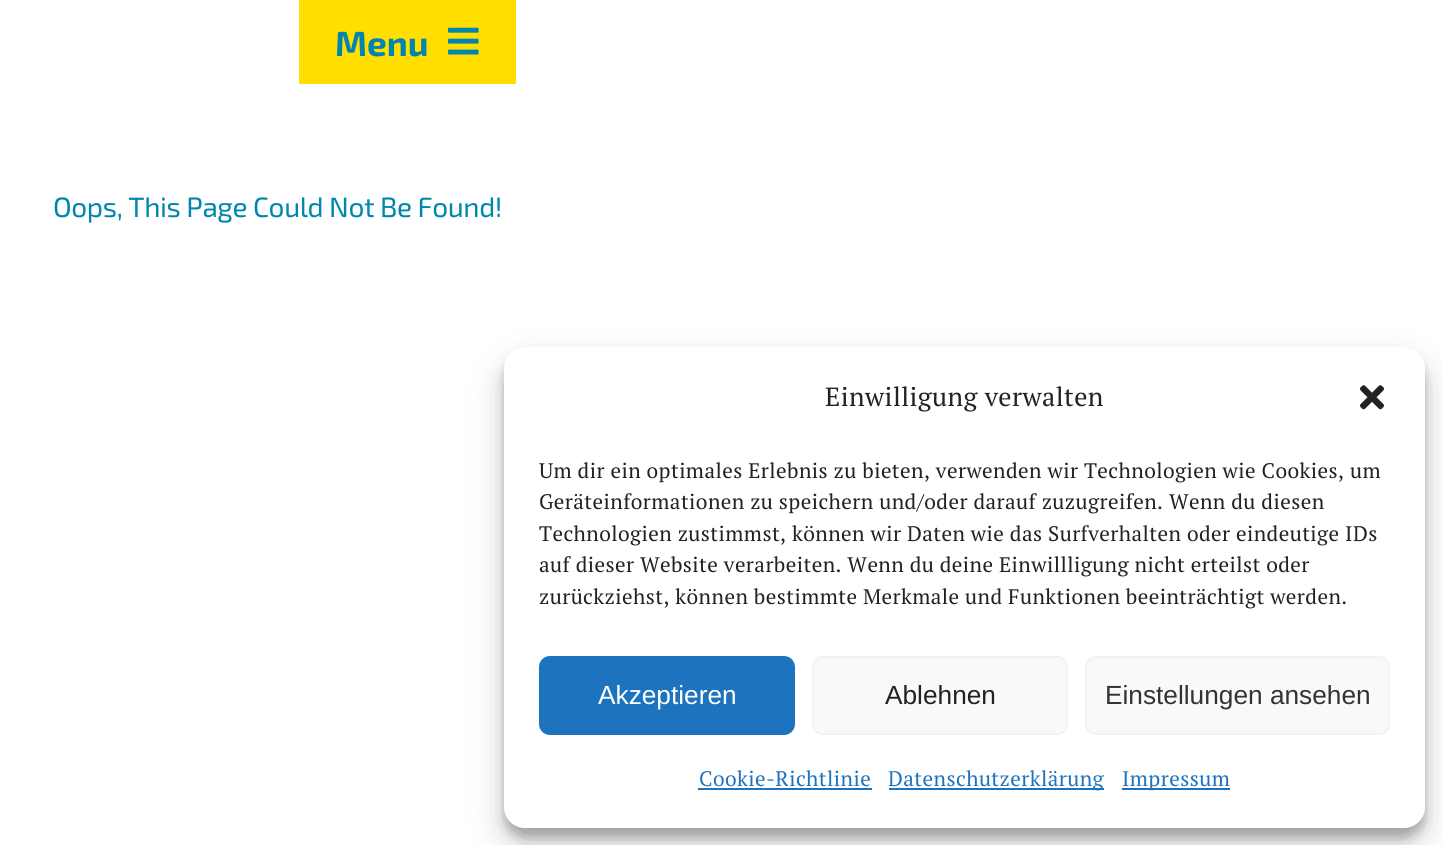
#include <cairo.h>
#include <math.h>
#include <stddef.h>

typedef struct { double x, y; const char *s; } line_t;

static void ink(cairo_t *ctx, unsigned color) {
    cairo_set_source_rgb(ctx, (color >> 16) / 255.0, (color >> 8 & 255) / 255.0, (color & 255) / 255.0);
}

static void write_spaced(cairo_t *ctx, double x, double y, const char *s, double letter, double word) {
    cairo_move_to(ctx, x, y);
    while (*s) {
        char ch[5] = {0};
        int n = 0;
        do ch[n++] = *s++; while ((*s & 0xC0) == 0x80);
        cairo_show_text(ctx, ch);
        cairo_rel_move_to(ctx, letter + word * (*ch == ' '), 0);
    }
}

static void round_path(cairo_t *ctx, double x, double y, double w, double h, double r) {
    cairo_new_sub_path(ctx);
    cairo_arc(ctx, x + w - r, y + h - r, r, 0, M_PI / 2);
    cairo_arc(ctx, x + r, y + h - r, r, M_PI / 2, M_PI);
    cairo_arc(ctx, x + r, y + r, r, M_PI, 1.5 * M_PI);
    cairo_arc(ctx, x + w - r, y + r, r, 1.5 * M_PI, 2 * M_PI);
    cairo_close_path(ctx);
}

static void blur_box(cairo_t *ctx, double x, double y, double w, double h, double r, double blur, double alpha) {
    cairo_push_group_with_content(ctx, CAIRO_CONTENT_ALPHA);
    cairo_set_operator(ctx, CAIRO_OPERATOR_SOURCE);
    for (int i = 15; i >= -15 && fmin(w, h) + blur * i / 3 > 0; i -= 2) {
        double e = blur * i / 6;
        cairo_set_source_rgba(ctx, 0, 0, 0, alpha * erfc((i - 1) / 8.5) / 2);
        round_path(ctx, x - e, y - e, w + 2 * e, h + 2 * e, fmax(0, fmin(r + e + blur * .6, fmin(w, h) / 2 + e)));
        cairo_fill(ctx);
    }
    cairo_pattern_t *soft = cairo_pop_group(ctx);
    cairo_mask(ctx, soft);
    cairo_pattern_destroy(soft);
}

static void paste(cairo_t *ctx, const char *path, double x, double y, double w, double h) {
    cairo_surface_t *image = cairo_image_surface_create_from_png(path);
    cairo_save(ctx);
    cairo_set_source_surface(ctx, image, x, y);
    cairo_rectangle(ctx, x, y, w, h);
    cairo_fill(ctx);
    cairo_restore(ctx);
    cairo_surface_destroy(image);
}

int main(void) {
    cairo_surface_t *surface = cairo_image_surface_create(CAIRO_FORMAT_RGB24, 1442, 845);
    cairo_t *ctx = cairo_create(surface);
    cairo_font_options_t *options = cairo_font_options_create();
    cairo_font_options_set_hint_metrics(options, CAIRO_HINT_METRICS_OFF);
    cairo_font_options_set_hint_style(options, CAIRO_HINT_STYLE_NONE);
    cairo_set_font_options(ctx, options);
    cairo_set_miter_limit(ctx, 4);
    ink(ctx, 0xFFFFFF);
    cairo_paint(ctx);
    ink(ctx, 0xFFDE00);
    cairo_rectangle(ctx, 299, 0, 217, 84);
    cairo_fill(ctx);
    cairo_select_font_face(ctx, "Exo 2", CAIRO_FONT_SLANT_NORMAL, CAIRO_FONT_WEIGHT_BOLD);
    cairo_set_font_size(ctx, 35);
    ink(ctx, 0x0086AE);
    cairo_move_to(ctx, 335, 56);
    cairo_show_text(ctx, "Menu");
    paste(ctx, "media/1.png", 448, 27, 31, 28);
    cairo_select_font_face(ctx, "Exo 2", CAIRO_FONT_SLANT_NORMAL, CAIRO_FONT_WEIGHT_NORMAL);
    cairo_set_font_size(ctx, 28);
    write_spaced(ctx, 53, 217, "Oops, This Page Could Not Be Found!", -0.4, 0);
    ink(ctx, 0x000000);
    blur_box(ctx, 504, 357, 921, 481, 21, 5, 0.23);
    blur_box(ctx, 504, 364, 921, 481, 21, 17.5, 0.19);
    ink(ctx, 0xFFFFFF);
    round_path(ctx, 504, 347, 921, 481, 21);
    cairo_fill(ctx);
    cairo_select_font_face(ctx, "PT Serif", CAIRO_FONT_SLANT_NORMAL, CAIRO_FONT_WEIGHT_NORMAL);
    cairo_set_font_size(ctx, 26.25);
    ink(ctx, 0x222222);
    write_spaced(ctx, 825, 406, "Einwilligung verwalten", 0.42, 0);
    paste(ctx, "media/2.png", 1360, 385, 24, 25);
    cairo_set_font_size(ctx, 21);
    {
        static const line_t items[] = {
            {539, 478, "Um dir ein optimales Erlebnis zu bieten, verwenden wir Technologien wie Cookies, um"},
            {539, 509, "Geräteinformationen zu speichern und/oder darauf zuzugreifen. Wenn du diesen"},
            {539, 541, "Technologien zustimmst, können wir Daten wie das Surfverhalten oder eindeutige IDs"},
            {539, 572, "auf dieser Website verarbeiten. Wenn du deine Einwillligung nicht erteilst oder"},
            {539, 604, "zurückziehst, können bestimmte Merkmale und Funktionen beeinträchtigt werden."},
        };
        for (size_t i = 0; i < sizeof items / sizeof *items; i++) {
            write_spaced(ctx, items[i].x, items[i].y, items[i].s, 0.42, 0);
        }
    }
    ink(ctx, 0x1E73BE);
    round_path(ctx, 540, 657, 254, 77, 10);
    cairo_fill_preserve(ctx);
    cairo_stroke(ctx);
    cairo_select_font_face(ctx, "Liberation Sans", CAIRO_FONT_SLANT_NORMAL, CAIRO_FONT_WEIGHT_NORMAL);
    cairo_set_font_size(ctx, 26.25);
    ink(ctx, 0xFFFFFF);
    cairo_move_to(ctx, 598, 704);
    cairo_show_text(ctx, "Akzeptieren");
    ink(ctx, 0xF9F9F9);
    round_path(ctx, 813, 657, 254, 77, 10);
    cairo_fill_preserve(ctx);
    ink(ctx, 0xF2F2F2);
    cairo_stroke(ctx);
    ink(ctx, 0x222222);
    cairo_move_to(ctx, 885, 704);
    cairo_show_text(ctx, "Ablehnen");
    ink(ctx, 0xF9F9F9);
    round_path(ctx, 1086, 657, 303, 77, 10);
    cairo_fill_preserve(ctx);
    ink(ctx, 0xF2F2F2);
    cairo_stroke(ctx);
    ink(ctx, 0x333333);
    cairo_move_to(ctx, 1105, 704);
    cairo_show_text(ctx, "Einstellungen ansehen");
    cairo_select_font_face(ctx, "PT Serif", CAIRO_FONT_SLANT_NORMAL, CAIRO_FONT_WEIGHT_NORMAL);
    cairo_set_font_size(ctx, 21);
    ink(ctx, 0x1E73BE);
    write_spaced(ctx, 699, 786, "Cookie-Richtlinie", 0.42, 0);
    cairo_rectangle(ctx, 698, 788, 174, 2);
    cairo_fill(ctx);
    cairo_rectangle(ctx, 889, 788, 215, 2);
    cairo_fill(ctx);
    write_spaced(ctx, 888, 786, "Datenschutzerklärung", 0.42, 0);
    cairo_rectangle(ctx, 1122, 788, 108, 2);
    cairo_fill(ctx);
    write_spaced(ctx, 1122, 786, "Impressum", 0.42, 0);
    cairo_surface_write_to_png(surface, "image.png");
    cairo_font_options_destroy(options);
    cairo_destroy(ctx);
    cairo_surface_destroy(surface);
    return 0;
}
